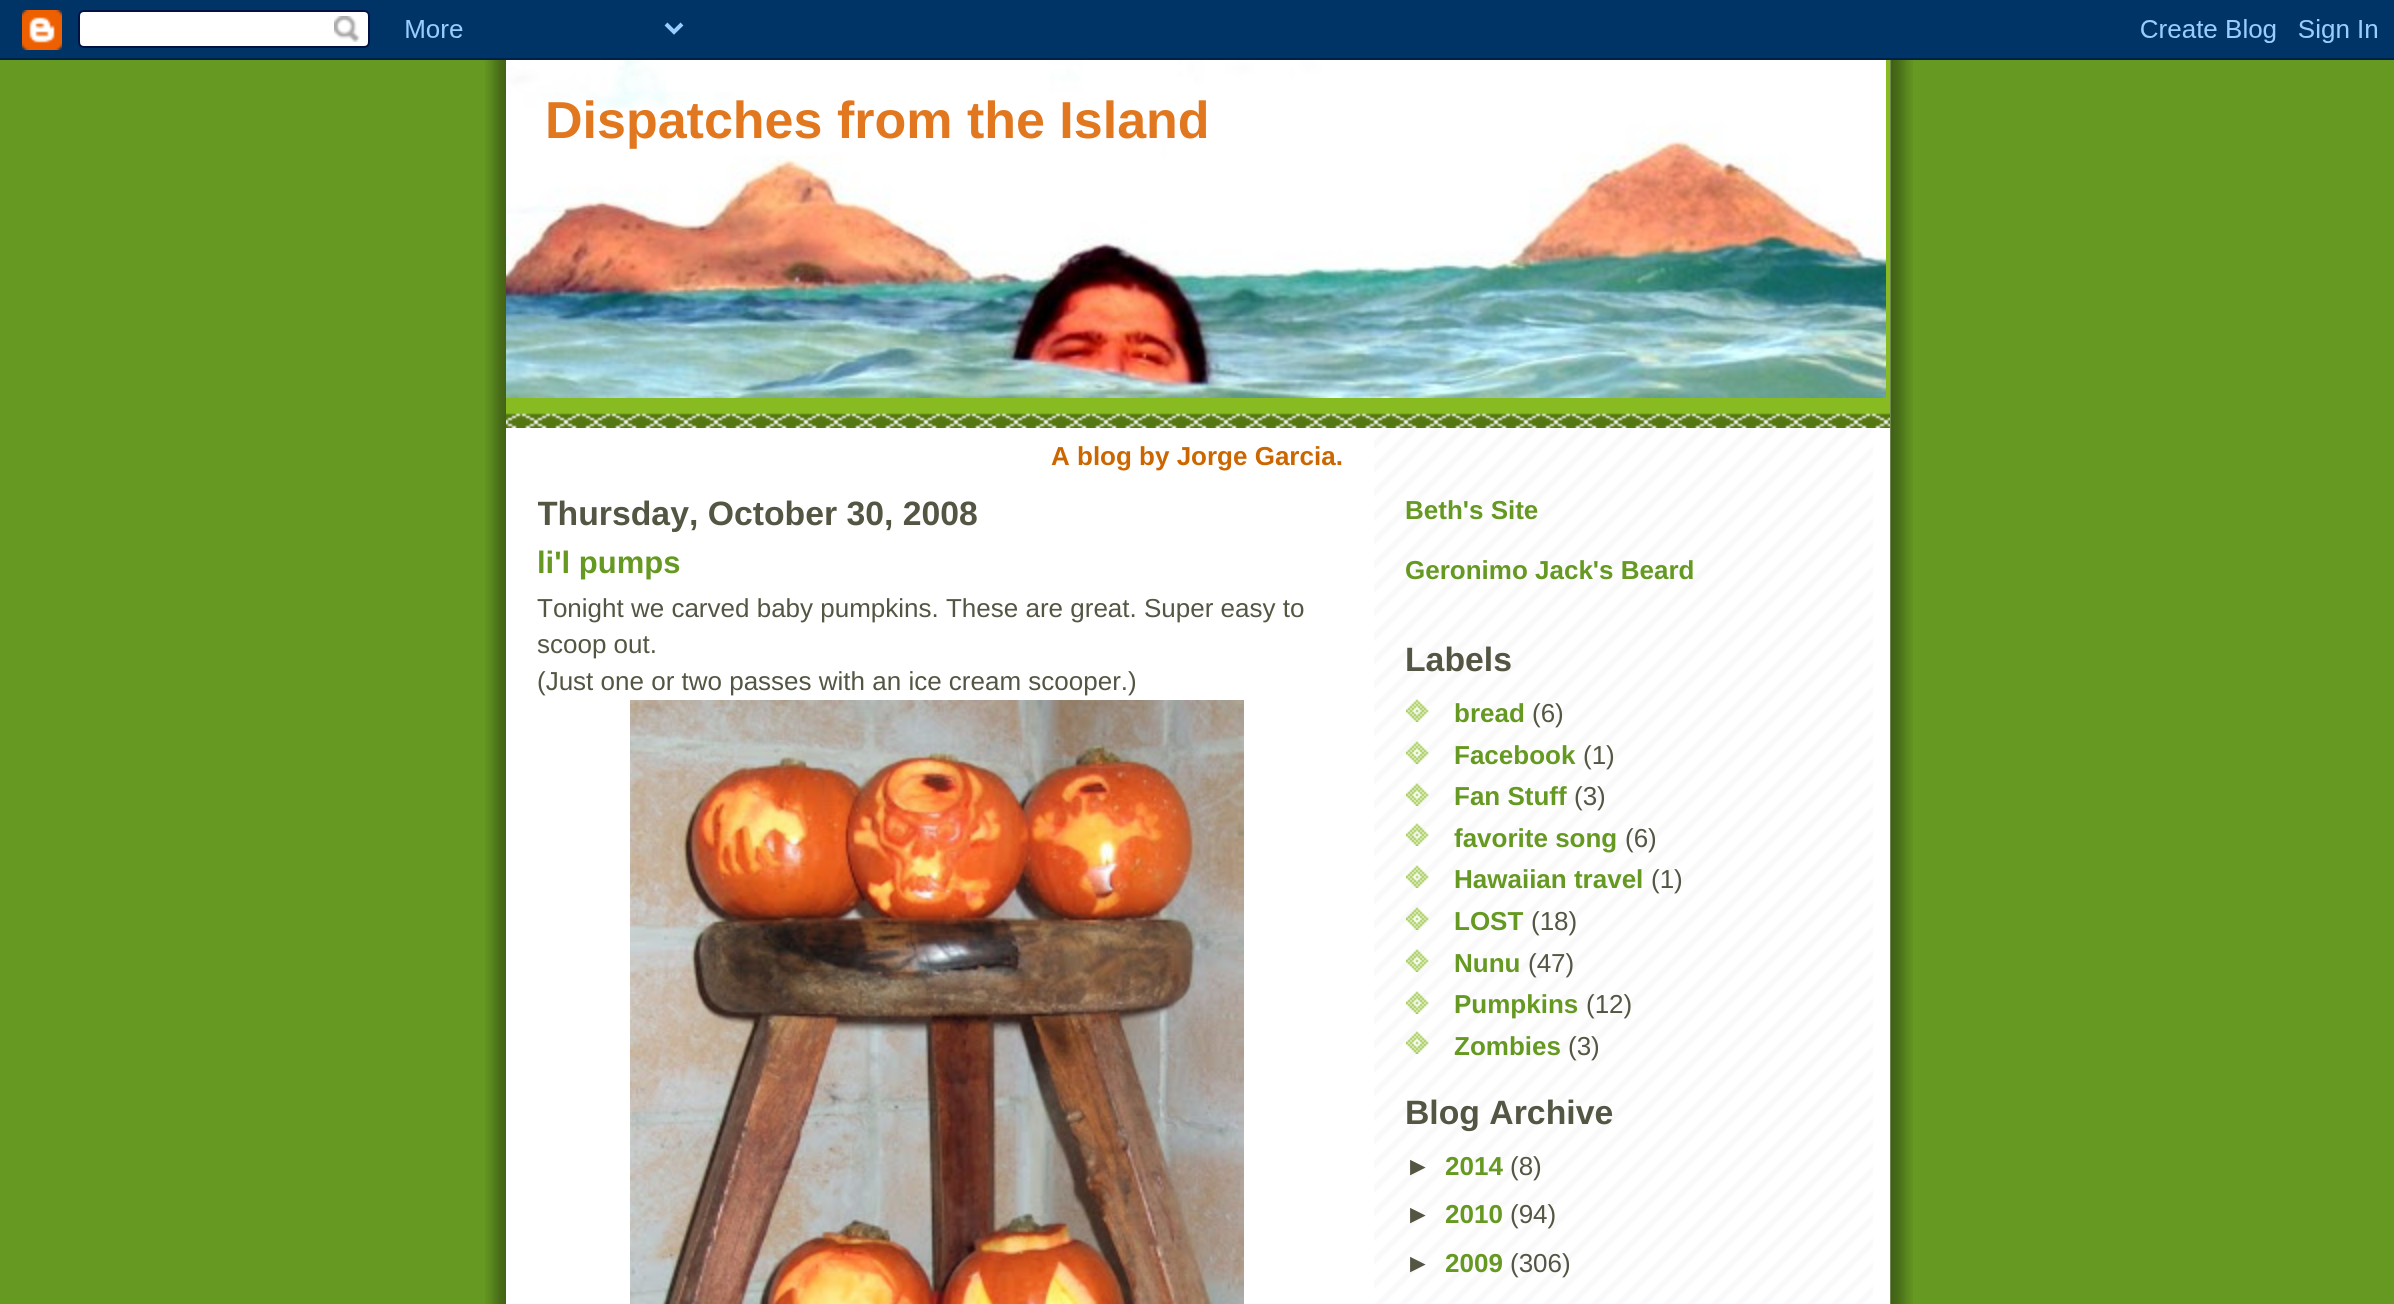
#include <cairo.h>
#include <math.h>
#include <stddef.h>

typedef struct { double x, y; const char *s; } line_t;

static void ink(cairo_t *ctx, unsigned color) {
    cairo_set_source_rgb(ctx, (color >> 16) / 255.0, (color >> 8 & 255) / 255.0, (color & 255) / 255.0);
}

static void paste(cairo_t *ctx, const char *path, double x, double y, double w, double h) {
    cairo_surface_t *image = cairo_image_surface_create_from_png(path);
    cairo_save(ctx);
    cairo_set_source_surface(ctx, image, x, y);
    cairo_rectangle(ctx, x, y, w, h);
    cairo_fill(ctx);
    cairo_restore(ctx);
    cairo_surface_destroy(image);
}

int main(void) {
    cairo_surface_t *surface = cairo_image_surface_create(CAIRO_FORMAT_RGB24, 2394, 1304);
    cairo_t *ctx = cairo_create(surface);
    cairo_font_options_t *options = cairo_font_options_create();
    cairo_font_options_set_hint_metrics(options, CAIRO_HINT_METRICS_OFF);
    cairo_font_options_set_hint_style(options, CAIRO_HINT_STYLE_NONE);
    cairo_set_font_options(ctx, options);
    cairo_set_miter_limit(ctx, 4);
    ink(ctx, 0x669922);
    cairo_paint(ctx);
    paste(ctx, "media/1.png", 485, 60, 1428, 1244);
    paste(ctx, "media/2.png", 0, 0, 2394, 60);
    ink(ctx, 0xFFFFFF);
    cairo_rectangle(ctx, 506, 428, 1384, 876);
    cairo_fill(ctx);
    paste(ctx, "media/3.png", 1374, 428, 499, 876);
    ink(ctx, 0x88BB22);
    cairo_rectangle(ctx, 506, 60, 1384, 353);
    cairo_fill(ctx);
    paste(ctx, "media/4.png", 506, 413, 1384, 15);
    paste(ctx, "media/5.png", 506, 60, 1380, 338);
    cairo_select_font_face(ctx, "Liberation Sans", CAIRO_FONT_SLANT_NORMAL, CAIRO_FONT_WEIGHT_BOLD);
    cairo_set_font_size(ctx, 52);
    ink(ctx, 0xE1771E);
    cairo_move_to(ctx, 545, 138);
    cairo_show_text(ctx, "Dispatches from the Island");
    cairo_set_font_size(ctx, 26);
    ink(ctx, 0xCC6600);
    cairo_move_to(ctx, 1051, 465);
    cairo_show_text(ctx, "A blog by Jorge Garcia.");
    cairo_save(ctx);
    cairo_rectangle(ctx, 538, 472, 800, 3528);
    cairo_clip(ctx);
    cairo_set_font_size(ctx, 33.75);
    ink(ctx, 0x555544);
    cairo_move_to(ctx, 537, 525);
    cairo_show_text(ctx, "Thursday, October 30, 2008");
    cairo_restore(ctx);
    cairo_set_font_size(ctx, 31);
    ink(ctx, 0x669922);
    cairo_move_to(ctx, 537, 573);
    cairo_show_text(ctx, "li'l pumps");
    cairo_select_font_face(ctx, "Liberation Sans", CAIRO_FONT_SLANT_NORMAL, CAIRO_FONT_WEIGHT_NORMAL);
    cairo_set_font_size(ctx, 26);
    ink(ctx, 0x555544);
    {
        static const line_t items[] = {
            {537, 617, "Tonight we carved baby pumpkins. These are great. Super easy to"},
            {537, 653, "scoop out."},
            {537, 690, "(Just one or two passes with an ice cream scooper.)"},
        };
        for (size_t i = 0; i < sizeof items / sizeof *items; i++) {
            cairo_move_to(ctx, items[i].x, items[i].y);
            cairo_show_text(ctx, items[i].s);
        }
    }
    paste(ctx, "media/6.png", 630, 700, 614, 604);
    cairo_select_font_face(ctx, "Liberation Sans", CAIRO_FONT_SLANT_NORMAL, CAIRO_FONT_WEIGHT_BOLD);
    ink(ctx, 0x669922);
    cairo_move_to(ctx, 1405, 519);
    cairo_show_text(ctx, "Beth's Site");
    cairo_move_to(ctx, 1405, 579);
    cairo_show_text(ctx, "Geronimo Jack's Beard");
    cairo_set_font_size(ctx, 33.75);
    ink(ctx, 0x555544);
    cairo_move_to(ctx, 1405, 671);
    cairo_show_text(ctx, "Labels");
    paste(ctx, "media/7.png", 1406, 699, 23, 23);
    cairo_set_font_size(ctx, 26);
    ink(ctx, 0x669922);
    cairo_move_to(ctx, 1454, 722);
    cairo_show_text(ctx, "bread");
    cairo_select_font_face(ctx, "Liberation Sans", CAIRO_FONT_SLANT_NORMAL, CAIRO_FONT_WEIGHT_NORMAL);
    ink(ctx, 0x555544);
    cairo_move_to(ctx, 1532, 722);
    cairo_show_text(ctx, "(6)");
    paste(ctx, "media/8.png", 1406, 741, 23, 23);
    cairo_select_font_face(ctx, "Liberation Sans", CAIRO_FONT_SLANT_NORMAL, CAIRO_FONT_WEIGHT_BOLD);
    ink(ctx, 0x669922);
    cairo_move_to(ctx, 1454, 764);
    cairo_show_text(ctx, "Facebook");
    cairo_select_font_face(ctx, "Liberation Sans", CAIRO_FONT_SLANT_NORMAL, CAIRO_FONT_WEIGHT_NORMAL);
    ink(ctx, 0x555544);
    cairo_move_to(ctx, 1583, 764);
    cairo_show_text(ctx, "(1)");
    paste(ctx, "media/9.png", 1406, 783, 23, 23);
    cairo_select_font_face(ctx, "Liberation Sans", CAIRO_FONT_SLANT_NORMAL, CAIRO_FONT_WEIGHT_BOLD);
    ink(ctx, 0x669922);
    cairo_move_to(ctx, 1454, 805);
    cairo_show_text(ctx, "Fan Stuff");
    cairo_select_font_face(ctx, "Liberation Sans", CAIRO_FONT_SLANT_NORMAL, CAIRO_FONT_WEIGHT_NORMAL);
    ink(ctx, 0x555544);
    cairo_move_to(ctx, 1574, 805);
    cairo_show_text(ctx, "(3)");
    paste(ctx, "media/10.png", 1406, 823, 23, 23);
    cairo_select_font_face(ctx, "Liberation Sans", CAIRO_FONT_SLANT_NORMAL, CAIRO_FONT_WEIGHT_BOLD);
    ink(ctx, 0x669922);
    cairo_move_to(ctx, 1454, 847);
    cairo_show_text(ctx, "favorite song");
    cairo_select_font_face(ctx, "Liberation Sans", CAIRO_FONT_SLANT_NORMAL, CAIRO_FONT_WEIGHT_NORMAL);
    ink(ctx, 0x555544);
    cairo_move_to(ctx, 1625, 847);
    cairo_show_text(ctx, "(6)");
    paste(ctx, "media/11.png", 1406, 865, 23, 23);
    cairo_select_font_face(ctx, "Liberation Sans", CAIRO_FONT_SLANT_NORMAL, CAIRO_FONT_WEIGHT_BOLD);
    ink(ctx, 0x669922);
    cairo_move_to(ctx, 1454, 888);
    cairo_show_text(ctx, "Hawaiian travel");
    cairo_select_font_face(ctx, "Liberation Sans", CAIRO_FONT_SLANT_NORMAL, CAIRO_FONT_WEIGHT_NORMAL);
    ink(ctx, 0x555544);
    cairo_move_to(ctx, 1651, 888);
    cairo_show_text(ctx, "(1)");
    paste(ctx, "media/12.png", 1406, 907, 23, 23);
    cairo_select_font_face(ctx, "Liberation Sans", CAIRO_FONT_SLANT_NORMAL, CAIRO_FONT_WEIGHT_BOLD);
    ink(ctx, 0x669922);
    cairo_move_to(ctx, 1454, 930);
    cairo_show_text(ctx, "LOST");
    cairo_select_font_face(ctx, "Liberation Sans", CAIRO_FONT_SLANT_NORMAL, CAIRO_FONT_WEIGHT_NORMAL);
    ink(ctx, 0x555544);
    cairo_move_to(ctx, 1531, 930);
    cairo_show_text(ctx, "(18)");
    paste(ctx, "media/13.png", 1406, 949, 23, 23);
    cairo_select_font_face(ctx, "Liberation Sans", CAIRO_FONT_SLANT_NORMAL, CAIRO_FONT_WEIGHT_BOLD);
    ink(ctx, 0x669922);
    cairo_move_to(ctx, 1454, 972);
    cairo_show_text(ctx, "Nunu");
    cairo_select_font_face(ctx, "Liberation Sans", CAIRO_FONT_SLANT_NORMAL, CAIRO_FONT_WEIGHT_NORMAL);
    ink(ctx, 0x555544);
    cairo_move_to(ctx, 1528, 972);
    cairo_show_text(ctx, "(47)");
    paste(ctx, "media/10.png", 1406, 991, 23, 23);
    cairo_select_font_face(ctx, "Liberation Sans", CAIRO_FONT_SLANT_NORMAL, CAIRO_FONT_WEIGHT_BOLD);
    ink(ctx, 0x669922);
    cairo_move_to(ctx, 1454, 1013);
    cairo_show_text(ctx, "Pumpkins");
    cairo_select_font_face(ctx, "Liberation Sans", CAIRO_FONT_SLANT_NORMAL, CAIRO_FONT_WEIGHT_NORMAL);
    ink(ctx, 0x555544);
    cairo_move_to(ctx, 1586, 1013);
    cairo_show_text(ctx, "(12)");
    paste(ctx, "media/14.png", 1406, 1031, 23, 23);
    cairo_select_font_face(ctx, "Liberation Sans", CAIRO_FONT_SLANT_NORMAL, CAIRO_FONT_WEIGHT_BOLD);
    ink(ctx, 0x669922);
    cairo_move_to(ctx, 1454, 1055);
    cairo_show_text(ctx, "Zombies");
    cairo_select_font_face(ctx, "Liberation Sans", CAIRO_FONT_SLANT_NORMAL, CAIRO_FONT_WEIGHT_NORMAL);
    ink(ctx, 0x555544);
    cairo_move_to(ctx, 1568, 1055);
    cairo_show_text(ctx, "(3)");
    cairo_select_font_face(ctx, "Liberation Sans", CAIRO_FONT_SLANT_NORMAL, CAIRO_FONT_WEIGHT_BOLD);
    cairo_set_font_size(ctx, 33.75);
    cairo_move_to(ctx, 1405, 1124);
    cairo_show_text(ctx, "Blog Archive");
    cairo_set_font_size(ctx, 26);
    cairo_move_to(ctx, 1405, 1175);
    cairo_show_text(ctx, "►");
    ink(ctx, 0x669922);
    cairo_move_to(ctx, 1445, 1175);
    cairo_show_text(ctx, "2014");
    cairo_select_font_face(ctx, "Liberation Sans", CAIRO_FONT_SLANT_NORMAL, CAIRO_FONT_WEIGHT_NORMAL);
    ink(ctx, 0x555544);
    cairo_move_to(ctx, 1510, 1175);
    cairo_show_text(ctx, "(8)");
    cairo_select_font_face(ctx, "Liberation Sans", CAIRO_FONT_SLANT_NORMAL, CAIRO_FONT_WEIGHT_BOLD);
    cairo_move_to(ctx, 1405, 1223);
    cairo_show_text(ctx, "►");
    ink(ctx, 0x669922);
    cairo_move_to(ctx, 1445, 1223);
    cairo_show_text(ctx, "2010");
    cairo_select_font_face(ctx, "Liberation Sans", CAIRO_FONT_SLANT_NORMAL, CAIRO_FONT_WEIGHT_NORMAL);
    ink(ctx, 0x555544);
    cairo_move_to(ctx, 1510, 1223);
    cairo_show_text(ctx, "(94)");
    cairo_select_font_face(ctx, "Liberation Sans", CAIRO_FONT_SLANT_NORMAL, CAIRO_FONT_WEIGHT_BOLD);
    cairo_move_to(ctx, 1405, 1272);
    cairo_show_text(ctx, "►");
    ink(ctx, 0x669922);
    cairo_move_to(ctx, 1445, 1272);
    cairo_show_text(ctx, "2009");
    cairo_select_font_face(ctx, "Liberation Sans", CAIRO_FONT_SLANT_NORMAL, CAIRO_FONT_WEIGHT_NORMAL);
    ink(ctx, 0x555544);
    cairo_move_to(ctx, 1510, 1272);
    cairo_show_text(ctx, "(306)");
    cairo_surface_write_to_png(surface, "image.png");
    cairo_font_options_destroy(options);
    cairo_destroy(ctx);
    cairo_surface_destroy(surface);
    return 0;
}
